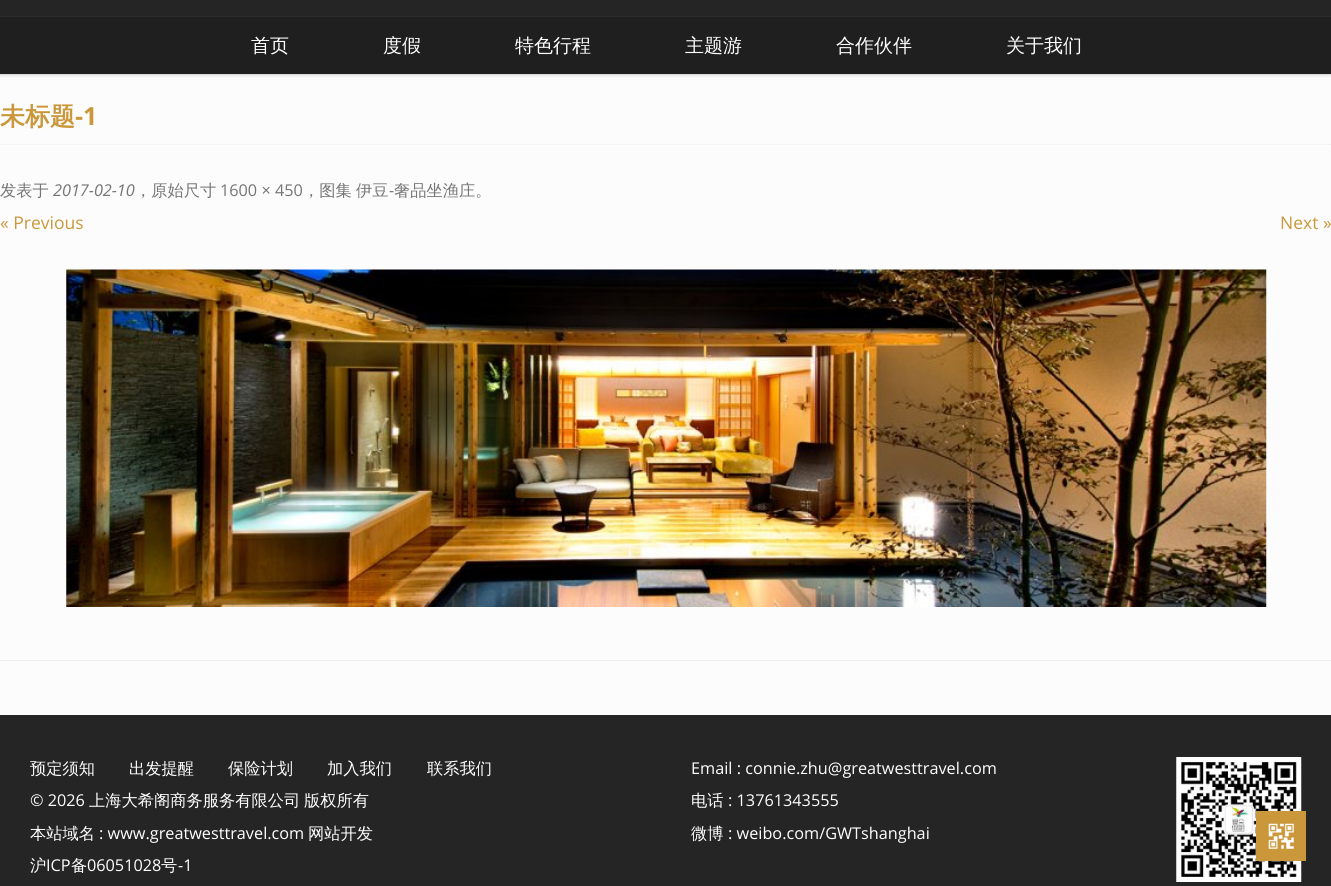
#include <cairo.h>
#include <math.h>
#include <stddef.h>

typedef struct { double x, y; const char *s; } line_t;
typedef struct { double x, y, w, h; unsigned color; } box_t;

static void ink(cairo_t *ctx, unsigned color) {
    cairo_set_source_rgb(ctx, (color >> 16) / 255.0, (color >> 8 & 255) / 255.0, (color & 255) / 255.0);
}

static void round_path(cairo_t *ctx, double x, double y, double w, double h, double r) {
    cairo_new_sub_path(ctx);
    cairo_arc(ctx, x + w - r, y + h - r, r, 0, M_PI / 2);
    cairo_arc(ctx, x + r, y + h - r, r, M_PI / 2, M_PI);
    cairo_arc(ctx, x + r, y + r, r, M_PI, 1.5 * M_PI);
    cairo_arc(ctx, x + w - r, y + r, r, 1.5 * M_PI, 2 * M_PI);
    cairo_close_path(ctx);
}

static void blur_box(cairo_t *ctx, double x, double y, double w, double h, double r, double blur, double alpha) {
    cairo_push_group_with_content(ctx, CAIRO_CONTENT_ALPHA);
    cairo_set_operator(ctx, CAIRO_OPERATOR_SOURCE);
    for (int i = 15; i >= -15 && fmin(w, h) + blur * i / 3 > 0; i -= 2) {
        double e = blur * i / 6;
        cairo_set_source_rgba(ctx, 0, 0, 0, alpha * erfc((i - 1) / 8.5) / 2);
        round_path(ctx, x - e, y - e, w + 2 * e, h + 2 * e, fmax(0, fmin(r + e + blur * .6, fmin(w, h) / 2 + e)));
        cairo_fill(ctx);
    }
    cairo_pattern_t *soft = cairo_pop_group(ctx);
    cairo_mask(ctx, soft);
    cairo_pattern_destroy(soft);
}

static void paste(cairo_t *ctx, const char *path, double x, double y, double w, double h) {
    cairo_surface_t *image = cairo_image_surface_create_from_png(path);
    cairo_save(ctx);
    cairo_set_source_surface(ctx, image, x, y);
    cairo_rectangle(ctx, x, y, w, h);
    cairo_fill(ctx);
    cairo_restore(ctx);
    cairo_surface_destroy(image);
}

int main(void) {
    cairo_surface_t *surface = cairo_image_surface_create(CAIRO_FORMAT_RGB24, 1331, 886);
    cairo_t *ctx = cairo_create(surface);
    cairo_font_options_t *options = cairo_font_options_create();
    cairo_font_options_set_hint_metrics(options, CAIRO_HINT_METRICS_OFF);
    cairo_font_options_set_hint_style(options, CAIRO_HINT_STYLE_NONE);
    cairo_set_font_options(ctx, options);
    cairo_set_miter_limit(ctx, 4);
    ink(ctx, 0xFCFCFC);
    cairo_paint(ctx);
    ink(ctx, 0x000000);
    blur_box(ctx, 0, -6, 1331, 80, 0, 2, 0.3);
    {
        static const box_t items[] = {
            {0, 0, 1331, 16, 0x252525},
            {0, 17, 1331, 57, 0x1F1F1F},
            {0, 16, 1331, 1, 0x2C2C2C},
        };
        for (size_t i = 0; i < sizeof items / sizeof *items; i++) {
            ink(ctx, items[i].color);
            cairo_rectangle(ctx, items[i].x, items[i].y, items[i].w, items[i].h);
            cairo_fill(ctx);
        }
    }
    cairo_select_font_face(ctx, "WenQuanYi Zen Hei Medium", CAIRO_FONT_SLANT_NORMAL, CAIRO_FONT_WEIGHT_NORMAL);
    cairo_set_font_size(ctx, 19);
    ink(ctx, 0xFFFFFF);
    {
        static const line_t items[] = {
            {251, 52, "首页"},
            {383, 52, "度假"},
            {515, 52, "特色行程"},
            {685, 52, "主题游"},
            {836, 52, "合作伙伴"},
            {1006, 52, "关于我们"},
        };
        for (size_t i = 0; i < sizeof items / sizeof *items; i++) {
            cairo_move_to(ctx, items[i].x, items[i].y);
            cairo_show_text(ctx, items[i].s);
        }
    }
    ink(ctx, 0xEDEDED);
    cairo_rectangle(ctx, 0, 660, 1331, 1);
    cairo_fill(ctx);
    cairo_new_path(ctx);
    cairo_move_to(ctx, 0, 144.5);
    cairo_line_to(ctx, 1331, 144.5);
    cairo_set_line_width(ctx, 1.2);
    cairo_set_dash(ctx, (double[]){1.25, 1.25}, 2, 0);
    cairo_stroke(ctx);
    cairo_select_font_face(ctx, "WenQuanYi Zen Hei", CAIRO_FONT_SLANT_NORMAL, CAIRO_FONT_WEIGHT_BOLD);
    cairo_set_font_size(ctx, 25);
    ink(ctx, 0xCA983B);
    cairo_move_to(ctx, 0, 125);
    cairo_show_text(ctx, "未标题");
    cairo_select_font_face(ctx, "Open Sans", CAIRO_FONT_SLANT_NORMAL, CAIRO_FONT_WEIGHT_BOLD);
    cairo_move_to(ctx, 75, 125);
    cairo_show_text(ctx, "-1");
    cairo_select_font_face(ctx, "WenQuanYi Zen Hei Medium", CAIRO_FONT_SLANT_NORMAL, CAIRO_FONT_WEIGHT_NORMAL);
    cairo_set_font_size(ctx, 16.25);
    ink(ctx, 0x757575);
    cairo_move_to(ctx, 0, 196);
    cairo_show_text(ctx, "发表于");
    cairo_select_font_face(ctx, "Open Sans", CAIRO_FONT_SLANT_ITALIC, CAIRO_FONT_WEIGHT_NORMAL);
    cairo_move_to(ctx, 53, 196);
    cairo_show_text(ctx, "2017-02-10");
    cairo_select_font_face(ctx, "WenQuanYi Zen Hei Medium", CAIRO_FONT_SLANT_NORMAL, CAIRO_FONT_WEIGHT_NORMAL);
    cairo_move_to(ctx, 135, 196);
    cairo_show_text(ctx, "，原始尺寸");
    cairo_select_font_face(ctx, "Open Sans", CAIRO_FONT_SLANT_NORMAL, CAIRO_FONT_WEIGHT_NORMAL);
    cairo_move_to(ctx, 220, 196);
    cairo_show_text(ctx, "1600 × 450");
    cairo_select_font_face(ctx, "WenQuanYi Zen Hei Medium", CAIRO_FONT_SLANT_NORMAL, CAIRO_FONT_WEIGHT_NORMAL);
    cairo_move_to(ctx, 303, 196);
    cairo_show_text(ctx, "，图集");
    cairo_move_to(ctx, 356, 196);
    cairo_show_text(ctx, "伊豆");
    cairo_select_font_face(ctx, "Open Sans", CAIRO_FONT_SLANT_NORMAL, CAIRO_FONT_WEIGHT_NORMAL);
    cairo_move_to(ctx, 389, 196);
    cairo_show_text(ctx, "-");
    cairo_select_font_face(ctx, "WenQuanYi Zen Hei Medium", CAIRO_FONT_SLANT_NORMAL, CAIRO_FONT_WEIGHT_NORMAL);
    cairo_move_to(ctx, 394, 196);
    cairo_show_text(ctx, "奢品坐渔庄。");
    cairo_select_font_face(ctx, "Open Sans", CAIRO_FONT_SLANT_NORMAL, CAIRO_FONT_WEIGHT_NORMAL);
    cairo_set_font_size(ctx, 17.5);
    ink(ctx, 0xCA983B);
    cairo_move_to(ctx, 0, 229);
    cairo_show_text(ctx, "« Previous");
    cairo_move_to(ctx, 1280, 229);
    cairo_show_text(ctx, "Next »");
    paste(ctx, "media/1.png", 66, 269, 1201, 338);
    ink(ctx, 0x252525);
    cairo_rectangle(ctx, 0, 715, 1331, 171);
    cairo_fill(ctx);
    cairo_select_font_face(ctx, "WenQuanYi Zen Hei Medium", CAIRO_FONT_SLANT_NORMAL, CAIRO_FONT_WEIGHT_NORMAL);
    cairo_set_font_size(ctx, 16.25);
    ink(ctx, 0xFFFFFF);
    {
        static const line_t items[] = {
            {30, 774, "预定须知"},
            {129, 774, "出发提醒"},
            {228, 774, "保险计划"},
            {327, 774, "加入我们"},
            {427, 774, "联系我们"},
        };
        for (size_t i = 0; i < sizeof items / sizeof *items; i++) {
            cairo_move_to(ctx, items[i].x, items[i].y);
            cairo_show_text(ctx, items[i].s);
        }
    }
    cairo_select_font_face(ctx, "Open Sans", CAIRO_FONT_SLANT_NORMAL, CAIRO_FONT_WEIGHT_NORMAL);
    cairo_move_to(ctx, 30, 806);
    cairo_show_text(ctx, "© 2026");
    cairo_select_font_face(ctx, "WenQuanYi Zen Hei Medium", CAIRO_FONT_SLANT_NORMAL, CAIRO_FONT_WEIGHT_NORMAL);
    {
        static const line_t items[] = {
            {89, 806, "上海大希阁商务服务有限公司"},
            {304, 806, "版权所有"},
            {30, 839, "本站域名"},
        };
        for (size_t i = 0; i < sizeof items / sizeof *items; i++) {
            cairo_move_to(ctx, items[i].x, items[i].y);
            cairo_show_text(ctx, items[i].s);
        }
    }
    cairo_select_font_face(ctx, "Open Sans", CAIRO_FONT_SLANT_NORMAL, CAIRO_FONT_WEIGHT_NORMAL);
    cairo_move_to(ctx, 99, 839);
    cairo_show_text(ctx, ": www.greatwesttravel.com");
    cairo_select_font_face(ctx, "WenQuanYi Zen Hei Medium", CAIRO_FONT_SLANT_NORMAL, CAIRO_FONT_WEIGHT_NORMAL);
    cairo_move_to(ctx, 308, 839);
    cairo_show_text(ctx, "网站开发");
    cairo_move_to(ctx, 30, 871);
    cairo_show_text(ctx, "沪");
    cairo_select_font_face(ctx, "Open Sans", CAIRO_FONT_SLANT_NORMAL, CAIRO_FONT_WEIGHT_NORMAL);
    cairo_move_to(ctx, 46, 871);
    cairo_show_text(ctx, "ICP");
    cairo_select_font_face(ctx, "WenQuanYi Zen Hei Medium", CAIRO_FONT_SLANT_NORMAL, CAIRO_FONT_WEIGHT_NORMAL);
    cairo_move_to(ctx, 71, 871);
    cairo_show_text(ctx, "备");
    cairo_select_font_face(ctx, "Open Sans", CAIRO_FONT_SLANT_NORMAL, CAIRO_FONT_WEIGHT_NORMAL);
    cairo_move_to(ctx, 87, 871);
    cairo_show_text(ctx, "06051028");
    cairo_select_font_face(ctx, "WenQuanYi Zen Hei Medium", CAIRO_FONT_SLANT_NORMAL, CAIRO_FONT_WEIGHT_NORMAL);
    cairo_move_to(ctx, 161, 871);
    cairo_show_text(ctx, "号");
    cairo_select_font_face(ctx, "Open Sans", CAIRO_FONT_SLANT_NORMAL, CAIRO_FONT_WEIGHT_NORMAL);
    cairo_move_to(ctx, 178, 871);
    cairo_show_text(ctx, "-1");
    cairo_move_to(ctx, 691, 774);
    cairo_show_text(ctx, "Email : connie.zhu@greatwesttravel.com");
    cairo_select_font_face(ctx, "WenQuanYi Zen Hei Medium", CAIRO_FONT_SLANT_NORMAL, CAIRO_FONT_WEIGHT_NORMAL);
    cairo_move_to(ctx, 691, 806);
    cairo_show_text(ctx, "电话");
    cairo_select_font_face(ctx, "Open Sans", CAIRO_FONT_SLANT_NORMAL, CAIRO_FONT_WEIGHT_NORMAL);
    cairo_move_to(ctx, 728, 806);
    cairo_show_text(ctx, ": 13761343555");
    cairo_select_font_face(ctx, "WenQuanYi Zen Hei Medium", CAIRO_FONT_SLANT_NORMAL, CAIRO_FONT_WEIGHT_NORMAL);
    cairo_move_to(ctx, 691, 839);
    cairo_show_text(ctx, "微博");
    cairo_select_font_face(ctx, "Open Sans", CAIRO_FONT_SLANT_NORMAL, CAIRO_FONT_WEIGHT_NORMAL);
    cairo_move_to(ctx, 728, 839);
    cairo_show_text(ctx, ": weibo.com/GWTshanghai");
    paste(ctx, "media/2.png", 1176, 757, 126, 125);
    ink(ctx, 0xCA983B);
    cairo_rectangle(ctx, 1256, 811, 50, 50);
    cairo_fill(ctx);
    paste(ctx, "media/3.png", 1268, 823, 26, 26);
    cairo_surface_write_to_png(surface, "image.png");
    cairo_font_options_destroy(options);
    cairo_destroy(ctx);
    cairo_surface_destroy(surface);
    return 0;
}
